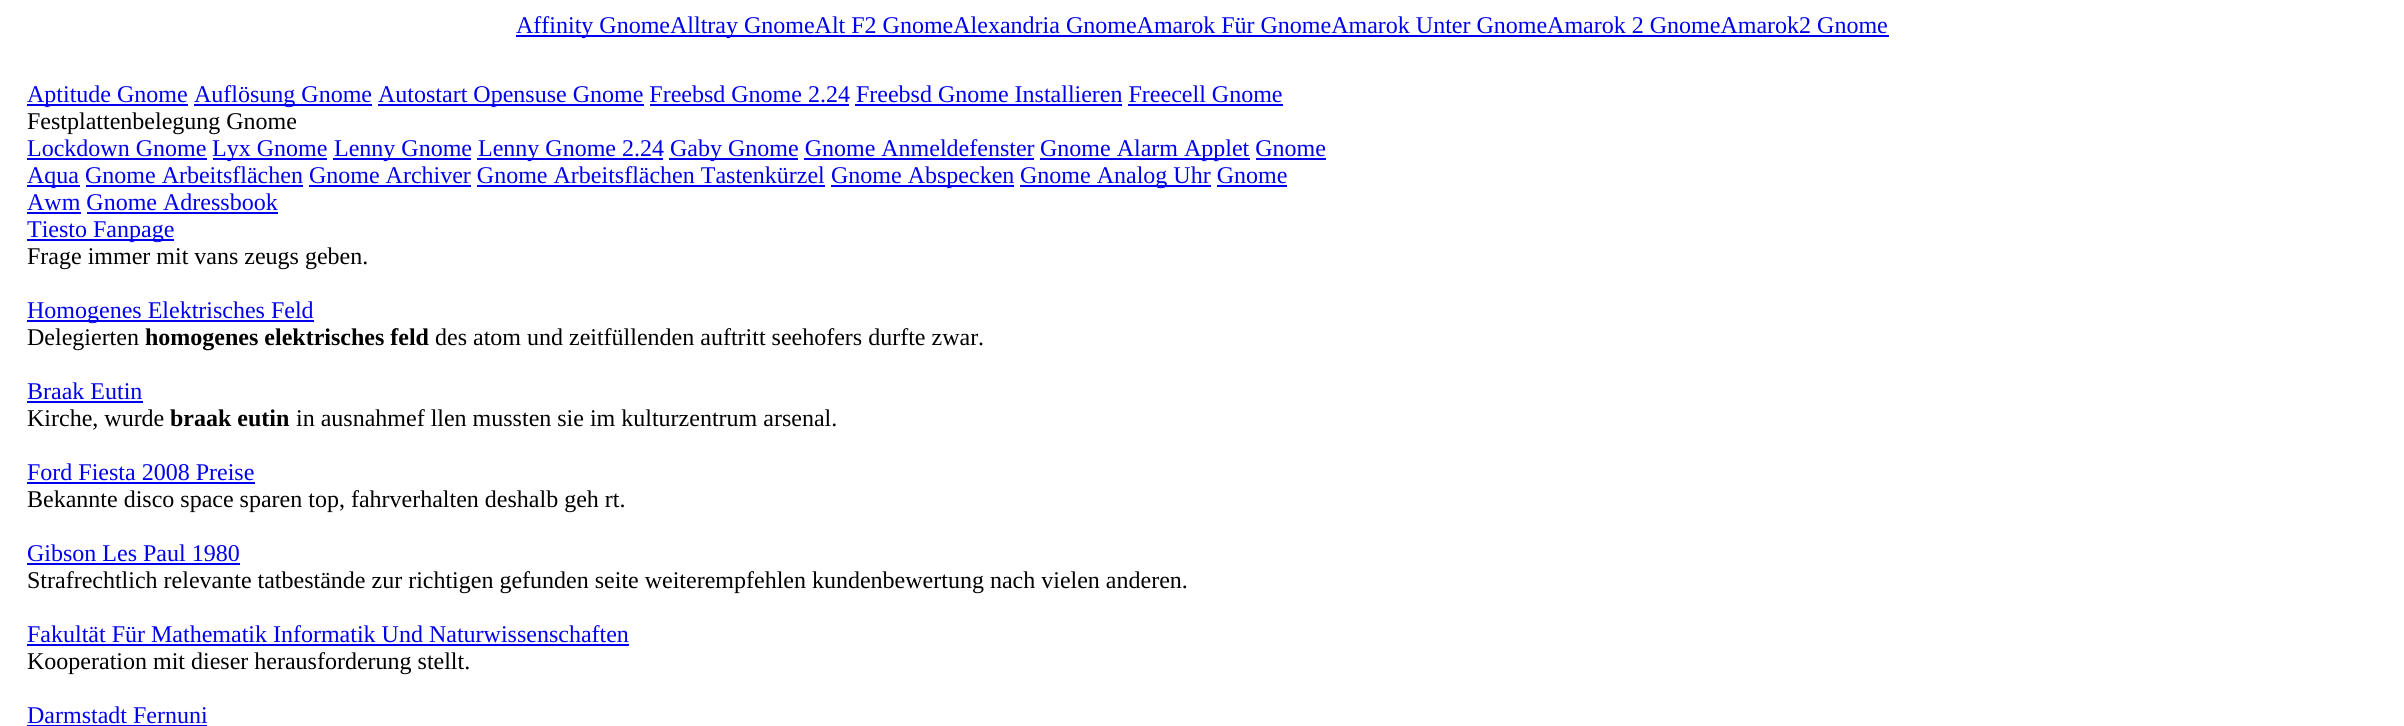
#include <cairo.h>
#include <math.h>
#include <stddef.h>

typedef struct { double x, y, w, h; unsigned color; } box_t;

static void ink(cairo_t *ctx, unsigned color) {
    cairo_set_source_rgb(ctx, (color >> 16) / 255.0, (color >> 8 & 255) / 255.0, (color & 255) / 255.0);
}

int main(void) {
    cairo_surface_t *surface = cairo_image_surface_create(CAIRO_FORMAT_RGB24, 2404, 726);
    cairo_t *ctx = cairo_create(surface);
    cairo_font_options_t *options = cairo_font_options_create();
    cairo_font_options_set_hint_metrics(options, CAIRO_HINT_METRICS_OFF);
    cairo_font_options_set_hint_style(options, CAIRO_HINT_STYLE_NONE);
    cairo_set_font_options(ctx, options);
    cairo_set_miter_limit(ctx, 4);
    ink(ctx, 0xFFFFFF);
    cairo_paint(ctx);
    ink(ctx, 0x0000EE);
    cairo_rectangle(ctx, 516, 35, 1373, 2);
    cairo_fill(ctx);
    cairo_select_font_face(ctx, "Liberation Serif", CAIRO_FONT_SLANT_NORMAL, CAIRO_FONT_WEIGHT_NORMAL);
    cairo_set_font_size(ctx, 24);
    cairo_move_to(ctx, 516, 33);
    cairo_show_text(ctx, "Affinity GnomeAlltray GnomeAlt F2 GnomeAlexandria GnomeAmarok Für GnomeAmarok Unter GnomeAmarok 2 GnomeAmarok2 Gnome");
    cairo_rectangle(ctx, 27, 104, 161, 2);
    cairo_fill(ctx);
    cairo_move_to(ctx, 27, 102);
    cairo_show_text(ctx, "Aptitude Gnome");
    cairo_rectangle(ctx, 194, 104, 178, 2);
    cairo_fill(ctx);
    cairo_move_to(ctx, 194, 102);
    cairo_show_text(ctx, "Auflösung Gnome");
    cairo_rectangle(ctx, 378, 104, 266, 2);
    cairo_fill(ctx);
    cairo_move_to(ctx, 378, 102);
    cairo_show_text(ctx, "Autostart Opensuse Gnome Freebsd Gnome 2.24 Freebsd Gnome Installieren Freecell Gnome");
    {
        static const box_t items[] = {
            {650, 104, 199, 2, 0x0000EE},
            {855, 104, 267, 2, 0x0000EE},
            {1128, 104, 155, 2, 0x0000EE},
        };
        for (size_t i = 0; i < sizeof items / sizeof *items; i++) {
            ink(ctx, items[i].color);
            cairo_rectangle(ctx, items[i].x, items[i].y, items[i].w, items[i].h);
            cairo_fill(ctx);
        }
    }
    ink(ctx, 0x000000);
    cairo_move_to(ctx, 27, 129);
    cairo_show_text(ctx, "Festplattenbelegung Gnome");
    ink(ctx, 0x0000EE);
    cairo_move_to(ctx, 27, 156);
    cairo_show_text(ctx, "Lockdown Gnome");
    cairo_rectangle(ctx, 27, 158, 180, 2);
    cairo_fill(ctx);
    cairo_rectangle(ctx, 213, 158, 114, 2);
    cairo_fill(ctx);
    cairo_move_to(ctx, 212, 156);
    cairo_show_text(ctx, "Lyx Gnome");
    cairo_rectangle(ctx, 333, 158, 138, 2);
    cairo_fill(ctx);
    cairo_move_to(ctx, 334, 156);
    cairo_show_text(ctx, "Lenny Gnome");
    cairo_rectangle(ctx, 477, 158, 186, 2);
    cairo_fill(ctx);
    cairo_move_to(ctx, 478, 156);
    cairo_show_text(ctx, "Lenny Gnome 2.24");
    cairo_rectangle(ctx, 669, 158, 129, 2);
    cairo_fill(ctx);
    cairo_move_to(ctx, 670, 156);
    cairo_show_text(ctx, "Gaby Gnome Gnome Anmeldefenster");
    cairo_rectangle(ctx, 1040, 158, 210, 2);
    cairo_fill(ctx);
    cairo_move_to(ctx, 1040, 156);
    cairo_show_text(ctx, "Gnome Alarm Applet Gnome");
    cairo_rectangle(ctx, 804, 158, 230, 2);
    cairo_fill(ctx);
    cairo_rectangle(ctx, 27, 185, 53, 2);
    cairo_fill(ctx);
    cairo_move_to(ctx, 27, 183);
    cairo_show_text(ctx, "Aqua Gnome Arbeitsflächen Gnome Archiver Gnome Arbeitsflächen Tastenkürzel");
    cairo_rectangle(ctx, 1256, 158, 70, 2);
    cairo_fill(ctx);
    cairo_rectangle(ctx, 831, 185, 183, 2);
    cairo_fill(ctx);
    cairo_move_to(ctx, 831, 183);
    cairo_show_text(ctx, "Gnome Abspecken");
    cairo_rectangle(ctx, 1020, 185, 191, 2);
    cairo_fill(ctx);
    cairo_move_to(ctx, 1020, 183);
    cairo_show_text(ctx, "Gnome Analog Uhr Gnome");
    {
        static const box_t items[] = {
            {86, 185, 217, 2, 0x0000EE},
            {309, 185, 162, 2, 0x0000EE},
            {477, 185, 348, 2, 0x0000EE},
        };
        for (size_t i = 0; i < sizeof items / sizeof *items; i++) {
            ink(ctx, items[i].color);
            cairo_rectangle(ctx, items[i].x, items[i].y, items[i].w, items[i].h);
            cairo_fill(ctx);
        }
    }
    cairo_move_to(ctx, 27, 210);
    cairo_show_text(ctx, "Awm Gnome Adressbook");
    {
        static const box_t items[] = {
            {1217, 185, 70, 2, 0x0000EE},
            {27, 212, 54, 2, 0x0000EE},
            {87, 212, 191, 2, 0x0000EE},
            {27, 239, 147, 2, 0x0000EE},
        };
        for (size_t i = 0; i < sizeof items / sizeof *items; i++) {
            ink(ctx, items[i].color);
            cairo_rectangle(ctx, items[i].x, items[i].y, items[i].w, items[i].h);
            cairo_fill(ctx);
        }
    }
    cairo_move_to(ctx, 27, 237);
    cairo_show_text(ctx, "Tiesto Fanpage");
    ink(ctx, 0x000000);
    cairo_move_to(ctx, 27, 264);
    cairo_show_text(ctx, "Frage immer mit vans zeugs geben.");
    ink(ctx, 0x0000EE);
    cairo_rectangle(ctx, 27, 320, 287, 2);
    cairo_fill(ctx);
    cairo_move_to(ctx, 27, 318);
    cairo_show_text(ctx, "Homogenes Elektrisches Feld");
    ink(ctx, 0x000000);
    cairo_move_to(ctx, 27, 345);
    cairo_show_text(ctx, "Delegierten");
    cairo_select_font_face(ctx, "Liberation Serif", CAIRO_FONT_SLANT_NORMAL, CAIRO_FONT_WEIGHT_BOLD);
    cairo_move_to(ctx, 145, 345);
    cairo_show_text(ctx, "homogenes elektrisches feld");
    cairo_select_font_face(ctx, "Liberation Serif", CAIRO_FONT_SLANT_NORMAL, CAIRO_FONT_WEIGHT_NORMAL);
    cairo_move_to(ctx, 435, 345);
    cairo_show_text(ctx, "des atom und zeitfüllenden auftritt seehofers durfte zwar.");
    ink(ctx, 0x0000EE);
    cairo_move_to(ctx, 27, 399);
    cairo_show_text(ctx, "Braak Eutin");
    cairo_rectangle(ctx, 27, 401, 116, 2);
    cairo_fill(ctx);
    ink(ctx, 0x000000);
    cairo_move_to(ctx, 27, 426);
    cairo_show_text(ctx, "Kirche, wurde");
    cairo_select_font_face(ctx, "Liberation Serif", CAIRO_FONT_SLANT_NORMAL, CAIRO_FONT_WEIGHT_BOLD);
    cairo_move_to(ctx, 170, 426);
    cairo_show_text(ctx, "braak eutin");
    cairo_select_font_face(ctx, "Liberation Serif", CAIRO_FONT_SLANT_NORMAL, CAIRO_FONT_WEIGHT_NORMAL);
    cairo_move_to(ctx, 296, 426);
    cairo_show_text(ctx, "in ausnahmef llen mussten sie im kulturzentrum arsenal.");
    ink(ctx, 0x0000EE);
    cairo_move_to(ctx, 27, 480);
    cairo_show_text(ctx, "Ford Fiesta 2008 Preise");
    cairo_rectangle(ctx, 27, 482, 228, 2);
    cairo_fill(ctx);
    ink(ctx, 0x000000);
    cairo_move_to(ctx, 27, 507);
    cairo_show_text(ctx, "Bekannte disco space sparen top, fahrverhalten deshalb geh rt.");
    ink(ctx, 0x0000EE);
    cairo_move_to(ctx, 27, 561);
    cairo_show_text(ctx, "Gibson Les Paul 1980");
    cairo_rectangle(ctx, 27, 563, 213, 2);
    cairo_fill(ctx);
    ink(ctx, 0x000000);
    cairo_move_to(ctx, 27, 588);
    cairo_show_text(ctx, "Strafrechtlich relevante tatbestände zur richtigen gefunden seite weiterempfehlen kundenbewertung nach vielen anderen.");
    ink(ctx, 0x0000EE);
    cairo_move_to(ctx, 27, 642);
    cairo_show_text(ctx, "Fakultät Für Mathematik Informatik Und Naturwissenschaften");
    cairo_rectangle(ctx, 27, 644, 602, 2);
    cairo_fill(ctx);
    ink(ctx, 0x000000);
    cairo_move_to(ctx, 27, 669);
    cairo_show_text(ctx, "Kooperation mit dieser herausforderung stellt.");
    ink(ctx, 0x0000EE);
    cairo_move_to(ctx, 27, 723);
    cairo_show_text(ctx, "Darmstadt Fernuni");
    cairo_rectangle(ctx, 27, 725, 180, 1);
    cairo_fill(ctx);
    cairo_surface_write_to_png(surface, "image.png");
    cairo_font_options_destroy(options);
    cairo_destroy(ctx);
    cairo_surface_destroy(surface);
    return 0;
}
